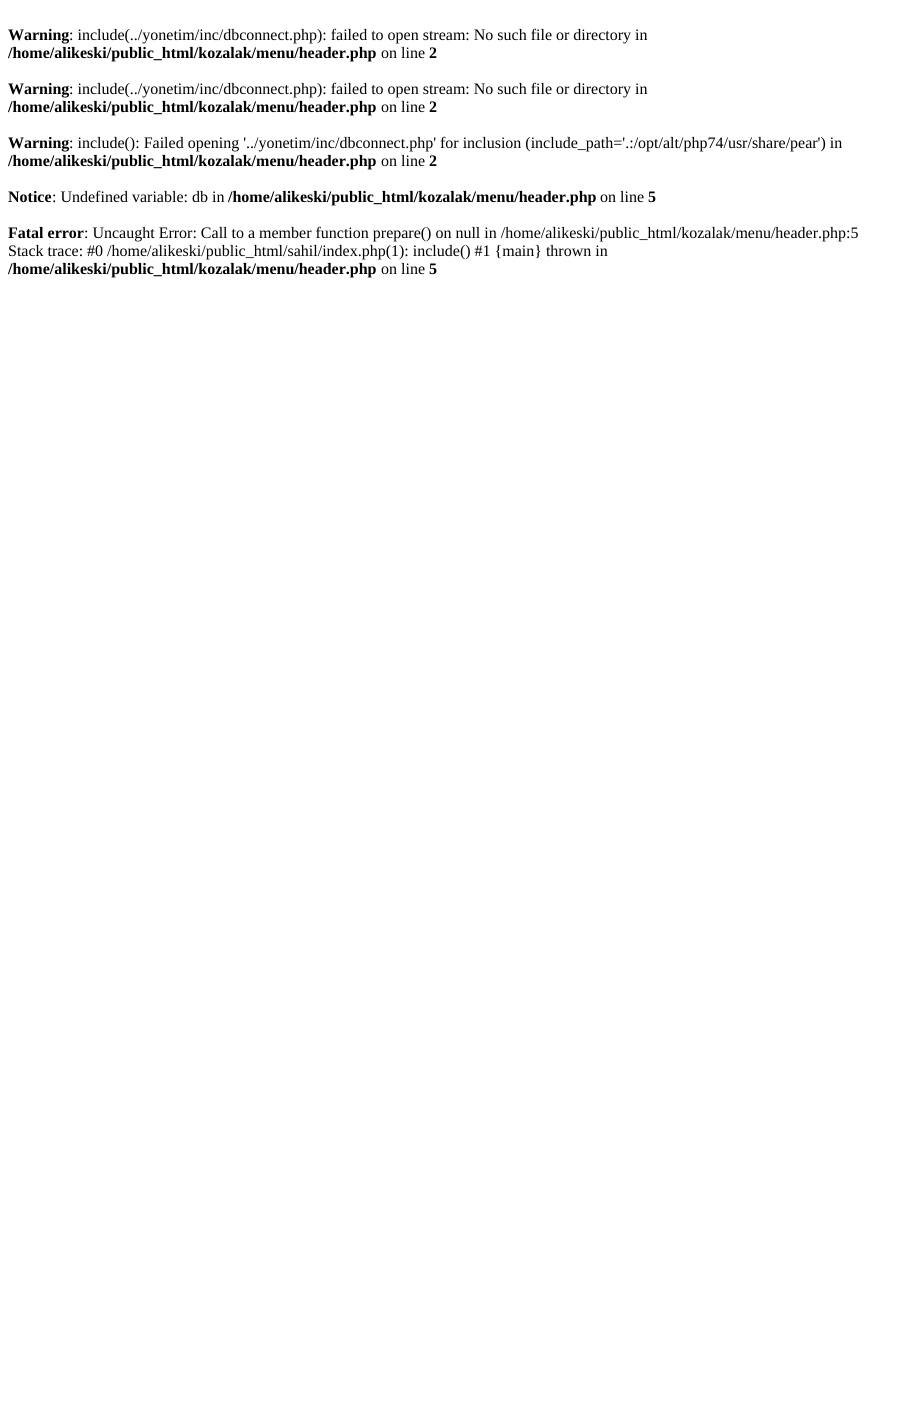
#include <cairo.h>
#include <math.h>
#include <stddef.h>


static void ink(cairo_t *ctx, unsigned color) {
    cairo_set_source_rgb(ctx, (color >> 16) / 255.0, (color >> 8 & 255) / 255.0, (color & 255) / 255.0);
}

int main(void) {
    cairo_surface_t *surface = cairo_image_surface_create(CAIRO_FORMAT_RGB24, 897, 1415);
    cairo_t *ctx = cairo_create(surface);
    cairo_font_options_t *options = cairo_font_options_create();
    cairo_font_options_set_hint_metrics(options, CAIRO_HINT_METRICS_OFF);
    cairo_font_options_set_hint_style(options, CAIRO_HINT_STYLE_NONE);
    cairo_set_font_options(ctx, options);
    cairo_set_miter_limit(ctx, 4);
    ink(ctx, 0xFFFFFF);
    cairo_paint(ctx);
    cairo_select_font_face(ctx, "Liberation Serif", CAIRO_FONT_SLANT_NORMAL, CAIRO_FONT_WEIGHT_BOLD);
    cairo_set_font_size(ctx, 16);
    ink(ctx, 0x000000);
    cairo_move_to(ctx, 8, 40);
    cairo_show_text(ctx, "Warning");
    cairo_select_font_face(ctx, "Liberation Serif", CAIRO_FONT_SLANT_NORMAL, CAIRO_FONT_WEIGHT_NORMAL);
    cairo_move_to(ctx, 69, 40);
    cairo_show_text(ctx, ": include(../yonetim/inc/dbconnect.php): failed to open stream: No such file or directory in");
    cairo_select_font_face(ctx, "Liberation Serif", CAIRO_FONT_SLANT_NORMAL, CAIRO_FONT_WEIGHT_BOLD);
    cairo_move_to(ctx, 8, 58);
    cairo_show_text(ctx, "/home/alikeski/public_html/kozalak/menu/header.php");
    cairo_select_font_face(ctx, "Liberation Serif", CAIRO_FONT_SLANT_NORMAL, CAIRO_FONT_WEIGHT_NORMAL);
    cairo_move_to(ctx, 381, 58);
    cairo_show_text(ctx, "on line");
    cairo_select_font_face(ctx, "Liberation Serif", CAIRO_FONT_SLANT_NORMAL, CAIRO_FONT_WEIGHT_BOLD);
    cairo_move_to(ctx, 429, 58);
    cairo_show_text(ctx, "2");
    cairo_move_to(ctx, 8, 94);
    cairo_show_text(ctx, "Warning");
    cairo_select_font_face(ctx, "Liberation Serif", CAIRO_FONT_SLANT_NORMAL, CAIRO_FONT_WEIGHT_NORMAL);
    cairo_move_to(ctx, 69, 94);
    cairo_show_text(ctx, ": include(../yonetim/inc/dbconnect.php): failed to open stream: No such file or directory in");
    cairo_select_font_face(ctx, "Liberation Serif", CAIRO_FONT_SLANT_NORMAL, CAIRO_FONT_WEIGHT_BOLD);
    cairo_move_to(ctx, 8, 112);
    cairo_show_text(ctx, "/home/alikeski/public_html/kozalak/menu/header.php");
    cairo_select_font_face(ctx, "Liberation Serif", CAIRO_FONT_SLANT_NORMAL, CAIRO_FONT_WEIGHT_NORMAL);
    cairo_move_to(ctx, 381, 112);
    cairo_show_text(ctx, "on line");
    cairo_select_font_face(ctx, "Liberation Serif", CAIRO_FONT_SLANT_NORMAL, CAIRO_FONT_WEIGHT_BOLD);
    cairo_move_to(ctx, 429, 112);
    cairo_show_text(ctx, "2");
    cairo_move_to(ctx, 8, 148);
    cairo_show_text(ctx, "Warning");
    cairo_select_font_face(ctx, "Liberation Serif", CAIRO_FONT_SLANT_NORMAL, CAIRO_FONT_WEIGHT_NORMAL);
    cairo_move_to(ctx, 69, 148);
    cairo_show_text(ctx, ": include(): Failed opening '../yonetim/inc/dbconnect.php' for inclusion (include_path='.:/opt/alt/php74/usr/share/pear') in");
    cairo_select_font_face(ctx, "Liberation Serif", CAIRO_FONT_SLANT_NORMAL, CAIRO_FONT_WEIGHT_BOLD);
    cairo_move_to(ctx, 8, 166);
    cairo_show_text(ctx, "/home/alikeski/public_html/kozalak/menu/header.php");
    cairo_select_font_face(ctx, "Liberation Serif", CAIRO_FONT_SLANT_NORMAL, CAIRO_FONT_WEIGHT_NORMAL);
    cairo_move_to(ctx, 381, 166);
    cairo_show_text(ctx, "on line");
    cairo_select_font_face(ctx, "Liberation Serif", CAIRO_FONT_SLANT_NORMAL, CAIRO_FONT_WEIGHT_BOLD);
    cairo_move_to(ctx, 429, 166);
    cairo_show_text(ctx, "2");
    cairo_move_to(ctx, 8, 202);
    cairo_show_text(ctx, "Notice");
    cairo_select_font_face(ctx, "Liberation Serif", CAIRO_FONT_SLANT_NORMAL, CAIRO_FONT_WEIGHT_NORMAL);
    cairo_move_to(ctx, 52, 202);
    cairo_show_text(ctx, ": Undefined variable: db in");
    cairo_select_font_face(ctx, "Liberation Serif", CAIRO_FONT_SLANT_NORMAL, CAIRO_FONT_WEIGHT_BOLD);
    cairo_move_to(ctx, 228, 202);
    cairo_show_text(ctx, "/home/alikeski/public_html/kozalak/menu/header.php");
    cairo_select_font_face(ctx, "Liberation Serif", CAIRO_FONT_SLANT_NORMAL, CAIRO_FONT_WEIGHT_NORMAL);
    cairo_move_to(ctx, 600, 202);
    cairo_show_text(ctx, "on line");
    cairo_select_font_face(ctx, "Liberation Serif", CAIRO_FONT_SLANT_NORMAL, CAIRO_FONT_WEIGHT_BOLD);
    cairo_move_to(ctx, 648, 202);
    cairo_show_text(ctx, "5");
    cairo_move_to(ctx, 8, 238);
    cairo_show_text(ctx, "Fatal error");
    cairo_select_font_face(ctx, "Liberation Serif", CAIRO_FONT_SLANT_NORMAL, CAIRO_FONT_WEIGHT_NORMAL);
    cairo_move_to(ctx, 84, 238);
    cairo_show_text(ctx, ": Uncaught Error: Call to a member function prepare() on null in /home/alikeski/public_html/kozalak/menu/header.php:5");
    cairo_move_to(ctx, 8, 256);
    cairo_show_text(ctx, "Stack trace: #0 /home/alikeski/public_html/sahil/index.php(1): include() #1 {main} thrown in");
    cairo_select_font_face(ctx, "Liberation Serif", CAIRO_FONT_SLANT_NORMAL, CAIRO_FONT_WEIGHT_BOLD);
    cairo_move_to(ctx, 8, 274);
    cairo_show_text(ctx, "/home/alikeski/public_html/kozalak/menu/header.php");
    cairo_select_font_face(ctx, "Liberation Serif", CAIRO_FONT_SLANT_NORMAL, CAIRO_FONT_WEIGHT_NORMAL);
    cairo_move_to(ctx, 381, 274);
    cairo_show_text(ctx, "on line");
    cairo_select_font_face(ctx, "Liberation Serif", CAIRO_FONT_SLANT_NORMAL, CAIRO_FONT_WEIGHT_BOLD);
    cairo_move_to(ctx, 429, 274);
    cairo_show_text(ctx, "5");
    cairo_surface_write_to_png(surface, "image.png");
    cairo_font_options_destroy(options);
    cairo_destroy(ctx);
    cairo_surface_destroy(surface);
    return 0;
}
